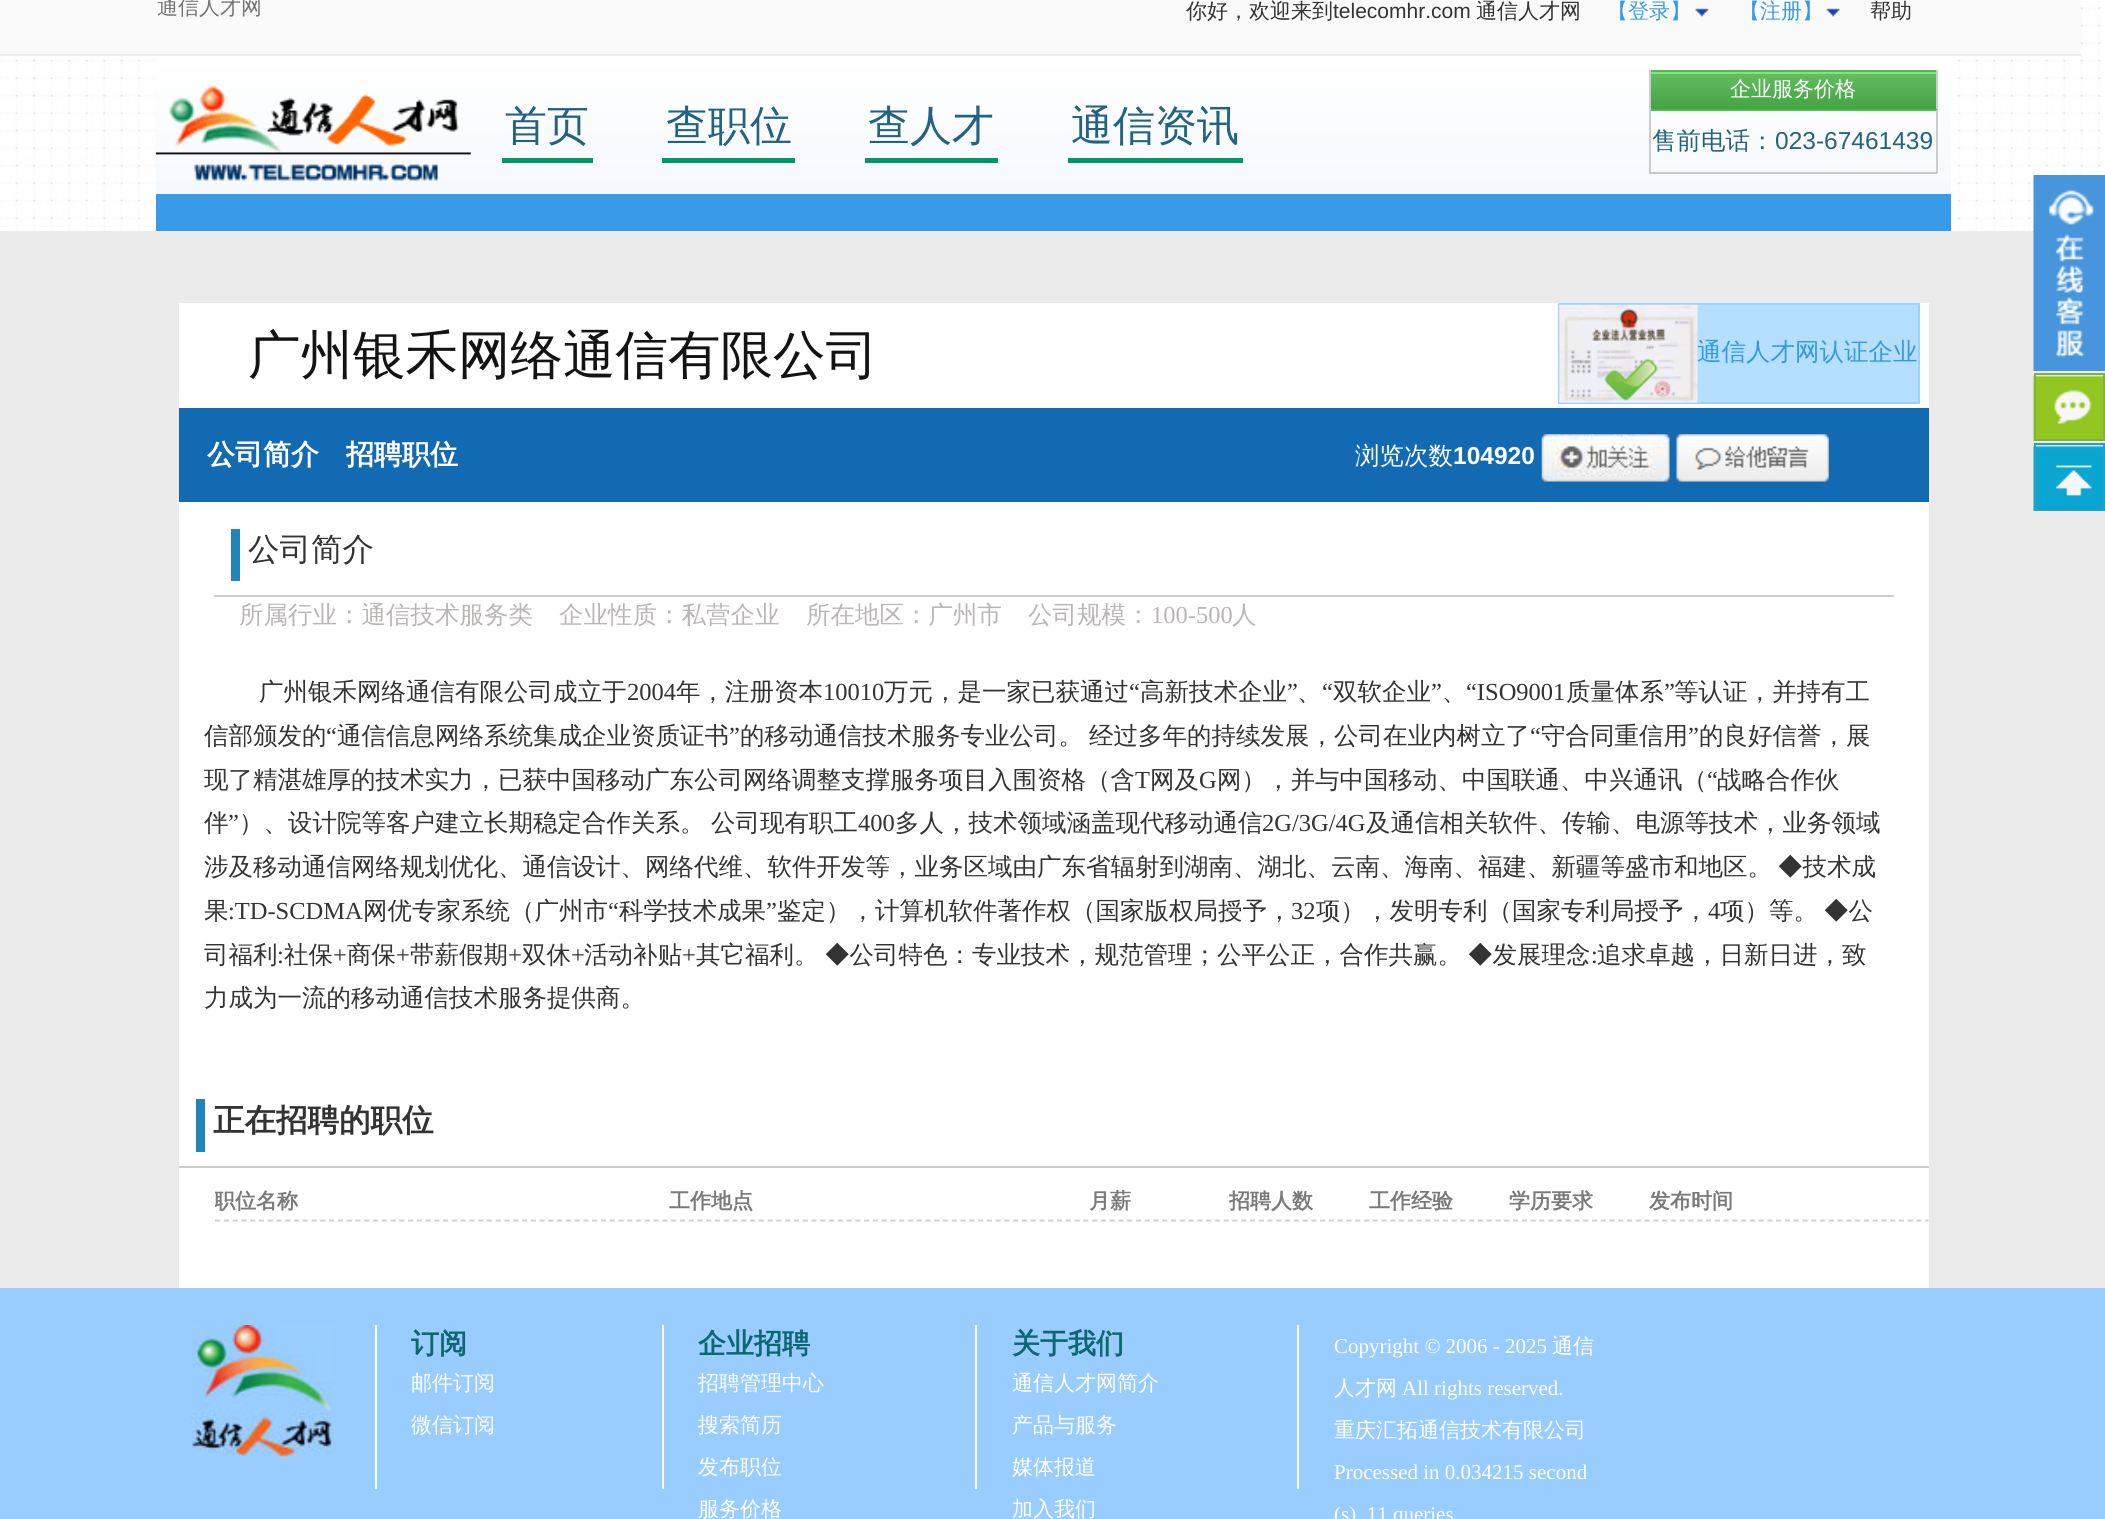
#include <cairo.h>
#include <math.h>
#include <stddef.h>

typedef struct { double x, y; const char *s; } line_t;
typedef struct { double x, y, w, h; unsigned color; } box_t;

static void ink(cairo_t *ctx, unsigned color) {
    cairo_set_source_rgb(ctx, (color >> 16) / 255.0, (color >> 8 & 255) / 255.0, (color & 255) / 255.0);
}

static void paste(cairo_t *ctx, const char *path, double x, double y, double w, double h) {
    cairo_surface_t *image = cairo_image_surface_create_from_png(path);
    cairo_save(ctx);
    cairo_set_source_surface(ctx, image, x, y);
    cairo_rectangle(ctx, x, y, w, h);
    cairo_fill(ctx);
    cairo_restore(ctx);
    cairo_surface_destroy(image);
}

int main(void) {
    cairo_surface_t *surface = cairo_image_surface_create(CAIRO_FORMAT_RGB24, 2105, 1519);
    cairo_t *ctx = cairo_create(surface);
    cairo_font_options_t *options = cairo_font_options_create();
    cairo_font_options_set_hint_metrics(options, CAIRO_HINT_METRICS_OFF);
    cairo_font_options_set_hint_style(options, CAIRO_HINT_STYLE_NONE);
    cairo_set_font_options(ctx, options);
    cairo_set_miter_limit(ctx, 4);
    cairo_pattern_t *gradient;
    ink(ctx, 0xFFFFFF);
    cairo_paint(ctx);
    paste(ctx, "media/1.png", 0, 1, 2103, 230);
    ink(ctx, 0xFAFAFA);
    cairo_rectangle(ctx, 0, 0, 2081, 54);
    cairo_fill(ctx);
    ink(ctx, 0xECECEC);
    cairo_rectangle(ctx, 0, 54, 2081, 2);
    cairo_fill(ctx);
    cairo_select_font_face(ctx, "WenQuanYi Zen Hei Medium", CAIRO_FONT_SLANT_NORMAL, CAIRO_FONT_WEIGHT_NORMAL);
    cairo_set_font_size(ctx, 21);
    ink(ctx, 0x747474);
    cairo_move_to(ctx, 157, 14);
    cairo_show_text(ctx, "通信人才网");
    ink(ctx, 0x333333);
    cairo_move_to(ctx, 1186, 18);
    cairo_show_text(ctx, "你好，欢迎来到");
    cairo_select_font_face(ctx, "Liberation Sans", CAIRO_FONT_SLANT_NORMAL, CAIRO_FONT_WEIGHT_NORMAL);
    cairo_move_to(ctx, 1333, 18);
    cairo_show_text(ctx, "telecomhr.com");
    cairo_select_font_face(ctx, "WenQuanYi Zen Hei Medium", CAIRO_FONT_SLANT_NORMAL, CAIRO_FONT_WEIGHT_NORMAL);
    cairo_move_to(ctx, 1476, 18);
    cairo_show_text(ctx, "通信人才网");
    paste(ctx, "media/2.png", 1695, 8, 14, 9);
    ink(ctx, 0x379BE9);
    cairo_move_to(ctx, 1607, 18);
    cairo_show_text(ctx, "【登录】");
    paste(ctx, "media/3.png", 1826, 8, 14, 9);
    cairo_move_to(ctx, 1739, 18);
    cairo_show_text(ctx, "【注册】");
    ink(ctx, 0x333333);
    cairo_move_to(ctx, 1870, 18);
    cairo_show_text(ctx, "帮助");
    gradient = cairo_pattern_create_linear(1054, 56, 1054, 231);
    cairo_pattern_add_color_stop_rgba(gradient, 0, 1, 1, 1, 1);
    cairo_pattern_add_color_stop_rgba(gradient, 1, 0.953, 0.969, 0.984, 1);
    cairo_set_source(ctx, gradient);
    cairo_pattern_destroy(gradient);
    cairo_rectangle(ctx, 156, 56, 1795, 138);
    cairo_fill(ctx);
    paste(ctx, "media/4.png", 155, 85, 316, 96);
    cairo_set_font_size(ctx, 42);
    ink(ctx, 0x226285);
    cairo_move_to(ctx, 505, 140);
    cairo_show_text(ctx, "首页");
    ink(ctx, 0x009966);
    cairo_rectangle(ctx, 502, 158, 91, 5);
    cairo_fill(ctx);
    ink(ctx, 0x226285);
    cairo_move_to(ctx, 666, 140);
    cairo_show_text(ctx, "查职位");
    ink(ctx, 0x009966);
    cairo_rectangle(ctx, 662, 158, 133, 5);
    cairo_fill(ctx);
    ink(ctx, 0x226285);
    cairo_move_to(ctx, 868, 140);
    cairo_show_text(ctx, "查人才");
    ink(ctx, 0x009966);
    cairo_rectangle(ctx, 865, 158, 133, 5);
    cairo_fill(ctx);
    ink(ctx, 0x226285);
    cairo_move_to(ctx, 1071, 140);
    cairo_show_text(ctx, "通信资讯");
    ink(ctx, 0x009966);
    cairo_rectangle(ctx, 1068, 158, 175, 5);
    cairo_fill(ctx);
    gradient = cairo_pattern_create_linear(1650, 72, 1650, 109);
    cairo_pattern_add_color_stop_rgba(gradient, 0, 0.396, 0.745, 0.388, 1);
    cairo_pattern_add_color_stop_rgba(gradient, 1, 0.263, 0.639, 0.255, 1);
    cairo_set_source(ctx, gradient);
    cairo_pattern_destroy(gradient);
    cairo_rectangle(ctx, 1651, 74, 285, 35);
    cairo_fill(ctx);
    {
        static const box_t items[] = {
            {1650, 72, 286, 2, 0x7EE77C},
            {1649, 70, 288, 2, 0x51B94F},
            {1936, 70, 2, 40, 0xCCCCCC},
            {1649, 109, 288, 2, 0x51B94F},
            {1649, 70, 2, 40, 0xCCCCCC},
        };
        for (size_t i = 0; i < sizeof items / sizeof *items; i++) {
            ink(ctx, items[i].color);
            cairo_rectangle(ctx, items[i].x, items[i].y, items[i].w, items[i].h);
            cairo_fill(ctx);
        }
    }
    cairo_set_font_size(ctx, 21);
    ink(ctx, 0xFFFFFF);
    cairo_move_to(ctx, 1730, 96);
    cairo_show_text(ctx, "企业服务价格");
    {
        static const box_t items[] = {
            {1936, 110, 2, 63, 0xCCCCCC},
            {1649, 172, 288, 2, 0xC8C5C5},
            {1649, 110, 2, 63, 0xCCCCCC},
        };
        for (size_t i = 0; i < sizeof items / sizeof *items; i++) {
            ink(ctx, items[i].color);
            cairo_rectangle(ctx, items[i].x, items[i].y, items[i].w, items[i].h);
            cairo_fill(ctx);
        }
    }
    cairo_set_font_size(ctx, 24.5);
    ink(ctx, 0x226285);
    cairo_move_to(ctx, 1652, 149);
    cairo_show_text(ctx, "售前电话：");
    cairo_select_font_face(ctx, "Liberation Sans", CAIRO_FONT_SLANT_NORMAL, CAIRO_FONT_WEIGHT_NORMAL);
    cairo_move_to(ctx, 1775, 149);
    cairo_show_text(ctx, "023-67461439");
    {
        static const box_t items[] = {
            {156, 194, 1795, 37, 0x379BE9},
            {0, 231, 2105, 1057, 0xEBEBEB},
            {179, 303, 1750, 985, 0xFFFFFF},
        };
        for (size_t i = 0; i < sizeof items / sizeof *items; i++) {
            ink(ctx, items[i].color);
            cairo_rectangle(ctx, items[i].x, items[i].y, items[i].w, items[i].h);
            cairo_fill(ctx);
        }
    }
    cairo_select_font_face(ctx, "WenQuanYi Zen Hei Medium", CAIRO_FONT_SLANT_NORMAL, CAIRO_FONT_WEIGHT_NORMAL);
    cairo_set_font_size(ctx, 52.5);
    ink(ctx, 0x131313);
    cairo_move_to(ctx, 248, 373);
    cairo_show_text(ctx, "广州银禾网络通信有限公司");
    ink(ctx, 0xB4DFFF);
    cairo_rectangle(ctx, 1697, 305, 221, 97);
    cairo_fill(ctx);
    cairo_rectangle(ctx, 1559, 304, 360, 99);
    ink(ctx, 0x9BD1FA);
    cairo_stroke(ctx);
    paste(ctx, "media/5.png", 1559, 304, 139, 99);
    cairo_set_font_size(ctx, 24.5);
    ink(ctx, 0x3598E3);
    cairo_move_to(ctx, 1697, 360);
    cairo_show_text(ctx, "通信人才网认证企业");
    ink(ctx, 0x126AB3);
    cairo_rectangle(ctx, 179, 408, 1750, 94);
    cairo_fill(ctx);
    cairo_select_font_face(ctx, "WenQuanYi Zen Hei", CAIRO_FONT_SLANT_NORMAL, CAIRO_FONT_WEIGHT_BOLD);
    cairo_set_font_size(ctx, 28);
    ink(ctx, 0xFFFFFF);
    cairo_move_to(ctx, 207, 464);
    cairo_show_text(ctx, "公司简介");
    cairo_move_to(ctx, 346, 464);
    cairo_show_text(ctx, "招聘职位");
    cairo_select_font_face(ctx, "WenQuanYi Zen Hei Medium", CAIRO_FONT_SLANT_NORMAL, CAIRO_FONT_WEIGHT_NORMAL);
    cairo_set_font_size(ctx, 24.5);
    cairo_move_to(ctx, 1355, 464);
    cairo_show_text(ctx, "浏览次数");
    cairo_select_font_face(ctx, "Liberation Sans", CAIRO_FONT_SLANT_NORMAL, CAIRO_FONT_WEIGHT_BOLD);
    cairo_move_to(ctx, 1453, 464);
    cairo_show_text(ctx, "104920");
    paste(ctx, "media/6.png", 1541, 434, 129, 48);
    paste(ctx, "media/7.png", 1676, 434, 153, 48);
    ink(ctx, 0xCCCCCC);
    cairo_rectangle(ctx, 214, 595, 1680, 2);
    cairo_fill(ctx);
    ink(ctx, 0x2185B9);
    cairo_rectangle(ctx, 231, 529, 9, 52);
    cairo_fill(ctx);
    cairo_select_font_face(ctx, "WenQuanYi Zen Hei Medium", CAIRO_FONT_SLANT_NORMAL, CAIRO_FONT_WEIGHT_NORMAL);
    cairo_set_font_size(ctx, 31.5);
    ink(ctx, 0x333333);
    cairo_move_to(ctx, 248, 560);
    cairo_show_text(ctx, "公司简介");
    cairo_set_font_size(ctx, 24.5);
    ink(ctx, 0xBAB6B6);
    {
        static const line_t items[] = {
            {239, 623, "所属行业：通信技术服务类"},
            {559, 623, "企业性质：私营企业"},
            {806, 623, "所在地区：广州市"},
            {1028, 623, "公司规模："},
        };
        for (size_t i = 0; i < sizeof items / sizeof *items; i++) {
            cairo_move_to(ctx, items[i].x, items[i].y);
            cairo_show_text(ctx, items[i].s);
        }
    }
    cairo_select_font_face(ctx, "Liberation Serif", CAIRO_FONT_SLANT_NORMAL, CAIRO_FONT_WEIGHT_NORMAL);
    cairo_move_to(ctx, 1151, 623);
    cairo_show_text(ctx, "100-500");
    cairo_select_font_face(ctx, "WenQuanYi Zen Hei Medium", CAIRO_FONT_SLANT_NORMAL, CAIRO_FONT_WEIGHT_NORMAL);
    cairo_move_to(ctx, 1232, 623);
    cairo_show_text(ctx, "人");
    ink(ctx, 0x333333);
    cairo_move_to(ctx, 259, 700);
    cairo_show_text(ctx, "广州银禾网络通信有限公司成立于");
    cairo_select_font_face(ctx, "Liberation Serif", CAIRO_FONT_SLANT_NORMAL, CAIRO_FONT_WEIGHT_NORMAL);
    cairo_move_to(ctx, 627, 700);
    cairo_show_text(ctx, "2004");
    cairo_select_font_face(ctx, "WenQuanYi Zen Hei Medium", CAIRO_FONT_SLANT_NORMAL, CAIRO_FONT_WEIGHT_NORMAL);
    cairo_move_to(ctx, 676, 700);
    cairo_show_text(ctx, "年，注册资本");
    cairo_select_font_face(ctx, "Liberation Serif", CAIRO_FONT_SLANT_NORMAL, CAIRO_FONT_WEIGHT_NORMAL);
    cairo_move_to(ctx, 823, 700);
    cairo_show_text(ctx, "10010");
    cairo_select_font_face(ctx, "WenQuanYi Zen Hei Medium", CAIRO_FONT_SLANT_NORMAL, CAIRO_FONT_WEIGHT_NORMAL);
    cairo_move_to(ctx, 884, 700);
    cairo_show_text(ctx, "万元，是一家已获通过");
    cairo_select_font_face(ctx, "Liberation Serif", CAIRO_FONT_SLANT_NORMAL, CAIRO_FONT_WEIGHT_NORMAL);
    cairo_move_to(ctx, 1129, 700);
    cairo_show_text(ctx, "“");
    cairo_select_font_face(ctx, "WenQuanYi Zen Hei Medium", CAIRO_FONT_SLANT_NORMAL, CAIRO_FONT_WEIGHT_NORMAL);
    cairo_move_to(ctx, 1140, 700);
    cairo_show_text(ctx, "高新技术企业");
    cairo_select_font_face(ctx, "Liberation Serif", CAIRO_FONT_SLANT_NORMAL, CAIRO_FONT_WEIGHT_NORMAL);
    cairo_move_to(ctx, 1287, 700);
    cairo_show_text(ctx, "”");
    cairo_move_to(ctx, 1322, 700);
    cairo_show_text(ctx, "“");
    cairo_select_font_face(ctx, "WenQuanYi Zen Hei Medium", CAIRO_FONT_SLANT_NORMAL, CAIRO_FONT_WEIGHT_NORMAL);
    cairo_move_to(ctx, 1333, 700);
    cairo_show_text(ctx, "双软企业");
    cairo_select_font_face(ctx, "Liberation Serif", CAIRO_FONT_SLANT_NORMAL, CAIRO_FONT_WEIGHT_NORMAL);
    cairo_move_to(ctx, 1431, 700);
    cairo_show_text(ctx, "”");
    cairo_move_to(ctx, 1466, 700);
    cairo_show_text(ctx, "“ISO9001");
    cairo_select_font_face(ctx, "WenQuanYi Zen Hei Medium", CAIRO_FONT_SLANT_NORMAL, CAIRO_FONT_WEIGHT_NORMAL);
    cairo_move_to(ctx, 1566, 700);
    cairo_show_text(ctx, "质量体系");
    cairo_select_font_face(ctx, "Liberation Serif", CAIRO_FONT_SLANT_NORMAL, CAIRO_FONT_WEIGHT_NORMAL);
    cairo_move_to(ctx, 1664, 700);
    cairo_show_text(ctx, "”");
    cairo_select_font_face(ctx, "WenQuanYi Zen Hei Medium", CAIRO_FONT_SLANT_NORMAL, CAIRO_FONT_WEIGHT_NORMAL);
    {
        static const line_t items[] = {
            {1674, 700, "等认证，并持有工"},
            {1297, 700, "、"},
            {1442, 700, "、"},
            {204, 744, "信部颁发的"},
        };
        for (size_t i = 0; i < sizeof items / sizeof *items; i++) {
            cairo_move_to(ctx, items[i].x, items[i].y);
            cairo_show_text(ctx, items[i].s);
        }
    }
    cairo_select_font_face(ctx, "Liberation Serif", CAIRO_FONT_SLANT_NORMAL, CAIRO_FONT_WEIGHT_NORMAL);
    cairo_move_to(ctx, 326, 744);
    cairo_show_text(ctx, "“");
    cairo_select_font_face(ctx, "WenQuanYi Zen Hei Medium", CAIRO_FONT_SLANT_NORMAL, CAIRO_FONT_WEIGHT_NORMAL);
    cairo_move_to(ctx, 337, 744);
    cairo_show_text(ctx, "通信信息网络系统集成企业资质证书");
    cairo_select_font_face(ctx, "Liberation Serif", CAIRO_FONT_SLANT_NORMAL, CAIRO_FONT_WEIGHT_NORMAL);
    cairo_move_to(ctx, 729, 744);
    cairo_show_text(ctx, "”");
    cairo_select_font_face(ctx, "WenQuanYi Zen Hei Medium", CAIRO_FONT_SLANT_NORMAL, CAIRO_FONT_WEIGHT_NORMAL);
    cairo_move_to(ctx, 740, 744);
    cairo_show_text(ctx, "的移动通信技术服务专业公司。");
    cairo_move_to(ctx, 1089, 744);
    cairo_show_text(ctx, "经过多年的持续发展，公司在业内树立了");
    cairo_select_font_face(ctx, "Liberation Serif", CAIRO_FONT_SLANT_NORMAL, CAIRO_FONT_WEIGHT_NORMAL);
    cairo_move_to(ctx, 1530, 744);
    cairo_show_text(ctx, "“");
    cairo_select_font_face(ctx, "WenQuanYi Zen Hei Medium", CAIRO_FONT_SLANT_NORMAL, CAIRO_FONT_WEIGHT_NORMAL);
    cairo_move_to(ctx, 1541, 744);
    cairo_show_text(ctx, "守合同重信用");
    cairo_select_font_face(ctx, "Liberation Serif", CAIRO_FONT_SLANT_NORMAL, CAIRO_FONT_WEIGHT_NORMAL);
    cairo_move_to(ctx, 1688, 744);
    cairo_show_text(ctx, "”");
    cairo_select_font_face(ctx, "WenQuanYi Zen Hei Medium", CAIRO_FONT_SLANT_NORMAL, CAIRO_FONT_WEIGHT_NORMAL);
    cairo_move_to(ctx, 1699, 744);
    cairo_show_text(ctx, "的良好信誉，展");
    cairo_move_to(ctx, 204, 788);
    cairo_show_text(ctx, "现了精湛雄厚的技术实力，已获中国移动广东公司网络调整支撑服务项目入围资格（含");
    cairo_select_font_face(ctx, "Liberation Serif", CAIRO_FONT_SLANT_NORMAL, CAIRO_FONT_WEIGHT_NORMAL);
    cairo_move_to(ctx, 1135, 788);
    cairo_show_text(ctx, "T");
    cairo_select_font_face(ctx, "WenQuanYi Zen Hei Medium", CAIRO_FONT_SLANT_NORMAL, CAIRO_FONT_WEIGHT_NORMAL);
    cairo_move_to(ctx, 1150, 788);
    cairo_show_text(ctx, "网及");
    cairo_select_font_face(ctx, "Liberation Serif", CAIRO_FONT_SLANT_NORMAL, CAIRO_FONT_WEIGHT_NORMAL);
    cairo_move_to(ctx, 1199, 788);
    cairo_show_text(ctx, "G");
    cairo_select_font_face(ctx, "WenQuanYi Zen Hei Medium", CAIRO_FONT_SLANT_NORMAL, CAIRO_FONT_WEIGHT_NORMAL);
    cairo_move_to(ctx, 1217, 788);
    cairo_show_text(ctx, "网），并与中国移动、中国联通、中兴通讯（");
    cairo_select_font_face(ctx, "Liberation Serif", CAIRO_FONT_SLANT_NORMAL, CAIRO_FONT_WEIGHT_NORMAL);
    cairo_move_to(ctx, 1707, 788);
    cairo_show_text(ctx, "“");
    cairo_select_font_face(ctx, "WenQuanYi Zen Hei Medium", CAIRO_FONT_SLANT_NORMAL, CAIRO_FONT_WEIGHT_NORMAL);
    cairo_move_to(ctx, 1717, 788);
    cairo_show_text(ctx, "战略合作伙");
    cairo_move_to(ctx, 204, 831);
    cairo_show_text(ctx, "伴");
    cairo_select_font_face(ctx, "Liberation Serif", CAIRO_FONT_SLANT_NORMAL, CAIRO_FONT_WEIGHT_NORMAL);
    cairo_move_to(ctx, 228, 831);
    cairo_show_text(ctx, "”");
    cairo_select_font_face(ctx, "WenQuanYi Zen Hei Medium", CAIRO_FONT_SLANT_NORMAL, CAIRO_FONT_WEIGHT_NORMAL);
    cairo_move_to(ctx, 239, 831);
    cairo_show_text(ctx, "）、设计院等客户建立长期稳定合作关系。");
    cairo_move_to(ctx, 711, 831);
    cairo_show_text(ctx, "公司现有职工");
    cairo_select_font_face(ctx, "Liberation Serif", CAIRO_FONT_SLANT_NORMAL, CAIRO_FONT_WEIGHT_NORMAL);
    cairo_move_to(ctx, 858, 831);
    cairo_show_text(ctx, "400");
    cairo_select_font_face(ctx, "WenQuanYi Zen Hei Medium", CAIRO_FONT_SLANT_NORMAL, CAIRO_FONT_WEIGHT_NORMAL);
    cairo_move_to(ctx, 895, 831);
    cairo_show_text(ctx, "多人，技术领域涵盖现代移动通信");
    cairo_select_font_face(ctx, "Liberation Serif", CAIRO_FONT_SLANT_NORMAL, CAIRO_FONT_WEIGHT_NORMAL);
    cairo_move_to(ctx, 1262, 831);
    cairo_show_text(ctx, "2G/3G/4G");
    cairo_select_font_face(ctx, "WenQuanYi Zen Hei Medium", CAIRO_FONT_SLANT_NORMAL, CAIRO_FONT_WEIGHT_NORMAL);
    {
        static const line_t items[] = {
            {1366, 831, "及通信相关软件、传输、电源等技术，业务领域"},
            {204, 875, "涉及移动通信网络规划优化、通信设计、网络代维、软件开发等，业务区域由广东省辐射到湖南、湖北、云南、海南、福建、新疆等盛市和地区。"},
            {1778, 875, "◆技术成"},
            {204, 919, "果"},
        };
        for (size_t i = 0; i < sizeof items / sizeof *items; i++) {
            cairo_move_to(ctx, items[i].x, items[i].y);
            cairo_show_text(ctx, items[i].s);
        }
    }
    cairo_select_font_face(ctx, "Liberation Serif", CAIRO_FONT_SLANT_NORMAL, CAIRO_FONT_WEIGHT_NORMAL);
    cairo_move_to(ctx, 228, 919);
    cairo_show_text(ctx, ":TD-SCDMA");
    cairo_select_font_face(ctx, "WenQuanYi Zen Hei Medium", CAIRO_FONT_SLANT_NORMAL, CAIRO_FONT_WEIGHT_NORMAL);
    cairo_move_to(ctx, 363, 919);
    cairo_show_text(ctx, "网优专家系统（广州市");
    cairo_select_font_face(ctx, "Liberation Serif", CAIRO_FONT_SLANT_NORMAL, CAIRO_FONT_WEIGHT_NORMAL);
    cairo_move_to(ctx, 608, 919);
    cairo_show_text(ctx, "“");
    cairo_select_font_face(ctx, "WenQuanYi Zen Hei Medium", CAIRO_FONT_SLANT_NORMAL, CAIRO_FONT_WEIGHT_NORMAL);
    cairo_move_to(ctx, 619, 919);
    cairo_show_text(ctx, "科学技术成果");
    cairo_select_font_face(ctx, "Liberation Serif", CAIRO_FONT_SLANT_NORMAL, CAIRO_FONT_WEIGHT_NORMAL);
    cairo_move_to(ctx, 766, 919);
    cairo_show_text(ctx, "”");
    cairo_select_font_face(ctx, "WenQuanYi Zen Hei Medium", CAIRO_FONT_SLANT_NORMAL, CAIRO_FONT_WEIGHT_NORMAL);
    cairo_move_to(ctx, 777, 919);
    cairo_show_text(ctx, "鉴定），计算机软件著作权（国家版权局授予，");
    cairo_select_font_face(ctx, "Liberation Serif", CAIRO_FONT_SLANT_NORMAL, CAIRO_FONT_WEIGHT_NORMAL);
    cairo_move_to(ctx, 1291, 919);
    cairo_show_text(ctx, "32");
    cairo_select_font_face(ctx, "WenQuanYi Zen Hei Medium", CAIRO_FONT_SLANT_NORMAL, CAIRO_FONT_WEIGHT_NORMAL);
    cairo_move_to(ctx, 1316, 919);
    cairo_show_text(ctx, "项），发明专利（国家专利局授予，");
    cairo_select_font_face(ctx, "Liberation Serif", CAIRO_FONT_SLANT_NORMAL, CAIRO_FONT_WEIGHT_NORMAL);
    cairo_move_to(ctx, 1708, 919);
    cairo_show_text(ctx, "4");
    cairo_select_font_face(ctx, "WenQuanYi Zen Hei Medium", CAIRO_FONT_SLANT_NORMAL, CAIRO_FONT_WEIGHT_NORMAL);
    {
        static const line_t items[] = {
            {1720, 919, "项）等。"},
            {1824, 919, "◆公"},
            {204, 963, "司福利"},
        };
        for (size_t i = 0; i < sizeof items / sizeof *items; i++) {
            cairo_move_to(ctx, items[i].x, items[i].y);
            cairo_show_text(ctx, items[i].s);
        }
    }
    cairo_select_font_face(ctx, "Liberation Serif", CAIRO_FONT_SLANT_NORMAL, CAIRO_FONT_WEIGHT_NORMAL);
    cairo_move_to(ctx, 277, 963);
    cairo_show_text(ctx, ":");
    cairo_select_font_face(ctx, "WenQuanYi Zen Hei Medium", CAIRO_FONT_SLANT_NORMAL, CAIRO_FONT_WEIGHT_NORMAL);
    cairo_move_to(ctx, 284, 963);
    cairo_show_text(ctx, "社保");
    cairo_select_font_face(ctx, "Liberation Serif", CAIRO_FONT_SLANT_NORMAL, CAIRO_FONT_WEIGHT_NORMAL);
    cairo_move_to(ctx, 333, 963);
    cairo_show_text(ctx, "+");
    cairo_select_font_face(ctx, "WenQuanYi Zen Hei Medium", CAIRO_FONT_SLANT_NORMAL, CAIRO_FONT_WEIGHT_NORMAL);
    cairo_move_to(ctx, 347, 963);
    cairo_show_text(ctx, "商保");
    cairo_select_font_face(ctx, "Liberation Serif", CAIRO_FONT_SLANT_NORMAL, CAIRO_FONT_WEIGHT_NORMAL);
    cairo_move_to(ctx, 396, 963);
    cairo_show_text(ctx, "+");
    cairo_select_font_face(ctx, "WenQuanYi Zen Hei Medium", CAIRO_FONT_SLANT_NORMAL, CAIRO_FONT_WEIGHT_NORMAL);
    cairo_move_to(ctx, 410, 963);
    cairo_show_text(ctx, "带薪假期");
    cairo_select_font_face(ctx, "Liberation Serif", CAIRO_FONT_SLANT_NORMAL, CAIRO_FONT_WEIGHT_NORMAL);
    cairo_move_to(ctx, 508, 963);
    cairo_show_text(ctx, "+");
    cairo_select_font_face(ctx, "WenQuanYi Zen Hei Medium", CAIRO_FONT_SLANT_NORMAL, CAIRO_FONT_WEIGHT_NORMAL);
    cairo_move_to(ctx, 522, 963);
    cairo_show_text(ctx, "双休");
    cairo_select_font_face(ctx, "Liberation Serif", CAIRO_FONT_SLANT_NORMAL, CAIRO_FONT_WEIGHT_NORMAL);
    cairo_move_to(ctx, 571, 963);
    cairo_show_text(ctx, "+");
    cairo_select_font_face(ctx, "WenQuanYi Zen Hei Medium", CAIRO_FONT_SLANT_NORMAL, CAIRO_FONT_WEIGHT_NORMAL);
    cairo_move_to(ctx, 584, 963);
    cairo_show_text(ctx, "活动补贴");
    cairo_select_font_face(ctx, "Liberation Serif", CAIRO_FONT_SLANT_NORMAL, CAIRO_FONT_WEIGHT_NORMAL);
    cairo_move_to(ctx, 682, 963);
    cairo_show_text(ctx, "+");
    cairo_select_font_face(ctx, "WenQuanYi Zen Hei Medium", CAIRO_FONT_SLANT_NORMAL, CAIRO_FONT_WEIGHT_NORMAL);
    {
        static const line_t items[] = {
            {696, 963, "其它福利。"},
            {825, 963, "◆公司特色：专业技术，规范管理；公平公正，合作共赢。"},
            {1468, 963, "◆发展理念"},
        };
        for (size_t i = 0; i < sizeof items / sizeof *items; i++) {
            cairo_move_to(ctx, items[i].x, items[i].y);
            cairo_show_text(ctx, items[i].s);
        }
    }
    cairo_select_font_face(ctx, "Liberation Serif", CAIRO_FONT_SLANT_NORMAL, CAIRO_FONT_WEIGHT_NORMAL);
    cairo_move_to(ctx, 1591, 963);
    cairo_show_text(ctx, ":");
    cairo_select_font_face(ctx, "WenQuanYi Zen Hei Medium", CAIRO_FONT_SLANT_NORMAL, CAIRO_FONT_WEIGHT_NORMAL);
    cairo_move_to(ctx, 1597, 963);
    cairo_show_text(ctx, "追求卓越，日新日进，致");
    cairo_move_to(ctx, 204, 1006);
    cairo_show_text(ctx, "力成为一流的移动通信技术服务提供商。");
    ink(ctx, 0xCCCCCC);
    cairo_rectangle(ctx, 179, 1166, 1750, 2);
    cairo_fill(ctx);
    ink(ctx, 0x2185B9);
    cairo_rectangle(ctx, 196, 1099, 9, 53);
    cairo_fill(ctx);
    cairo_select_font_face(ctx, "WenQuanYi Zen Hei", CAIRO_FONT_SLANT_NORMAL, CAIRO_FONT_WEIGHT_BOLD);
    cairo_set_font_size(ctx, 31.5);
    ink(ctx, 0x333333);
    cairo_move_to(ctx, 213, 1131);
    cairo_show_text(ctx, "正在招聘的职位");
    cairo_new_path(ctx);
    cairo_move_to(ctx, 215, 1220.5);
    cairo_line_to(ctx, 1928.5, 1220.5);
    ink(ctx, 0xCCCCCC);
    cairo_set_line_width(ctx, 1.8);
    cairo_set_dash(ctx, (double[]){5.25, 3.52}, 2, 0);
    cairo_stroke(ctx);
    cairo_save(ctx);
    cairo_rectangle(ctx, 215, 1185, 1714, 35);
    cairo_clip(ctx);
    cairo_set_font_size(ctx, 21);
    ink(ctx, 0x7B7979);
    cairo_move_to(ctx, 214, 1208);
    cairo_show_text(ctx, "职位名称");
    cairo_restore(ctx);
    cairo_set_font_size(ctx, 21);
    ink(ctx, 0x7B7979);
    {
        static const line_t items[] = {
            {669, 1208, "工作地点"},
            {1089, 1208, "月薪"},
            {1229, 1208, "招聘人数"},
            {1369, 1208, "工作经验"},
            {1509, 1208, "学历要求"},
            {1649, 1208, "发布时间"},
        };
        for (size_t i = 0; i < sizeof items / sizeof *items; i++) {
            cairo_move_to(ctx, items[i].x, items[i].y);
            cairo_show_text(ctx, items[i].s);
        }
    }
    paste(ctx, "media/8.png", 2033, 175, 72, 196);
    paste(ctx, "media/9.png", 2033, 375, 70, 66);
    cairo_rectangle(ctx, 2035, 374, 69, 66);
    ink(ctx, 0x81B140);
    cairo_set_line_width(ctx, 2);
    cairo_set_dash(ctx, NULL, 0, 0);
    cairo_stroke(ctx);
    paste(ctx, "media/10.png", 2033, 445, 70, 66);
    cairo_rectangle(ctx, 2035, 444, 69, 66);
    ink(ctx, 0x299EC0);
    cairo_stroke(ctx);
    ink(ctx, 0x99CDFF);
    cairo_rectangle(ctx, 0, 1288, 2105, 231);
    cairo_fill(ctx);
    paste(ctx, "media/11.png", 191, 1325, 143, 132);
    ink(ctx, 0xF9FFCF);
    cairo_rectangle(ctx, 375, 1325, 2, 164);
    cairo_fill(ctx);
    cairo_set_font_size(ctx, 28);
    ink(ctx, 0x0D6770);
    cairo_move_to(ctx, 411, 1353);
    cairo_show_text(ctx, "订阅");
    cairo_select_font_face(ctx, "WenQuanYi Zen Hei Medium", CAIRO_FONT_SLANT_NORMAL, CAIRO_FONT_WEIGHT_NORMAL);
    cairo_set_font_size(ctx, 21);
    ink(ctx, 0xFFFFFF);
    cairo_move_to(ctx, 411, 1390);
    cairo_show_text(ctx, "邮件订阅");
    cairo_move_to(ctx, 411, 1432);
    cairo_show_text(ctx, "微信订阅");
    ink(ctx, 0xF9FFCF);
    cairo_rectangle(ctx, 662, 1325, 2, 164);
    cairo_fill(ctx);
    cairo_select_font_face(ctx, "WenQuanYi Zen Hei", CAIRO_FONT_SLANT_NORMAL, CAIRO_FONT_WEIGHT_BOLD);
    cairo_set_font_size(ctx, 28);
    ink(ctx, 0x0D6770);
    cairo_move_to(ctx, 698, 1353);
    cairo_show_text(ctx, "企业招聘");
    cairo_select_font_face(ctx, "WenQuanYi Zen Hei Medium", CAIRO_FONT_SLANT_NORMAL, CAIRO_FONT_WEIGHT_NORMAL);
    cairo_set_font_size(ctx, 21);
    ink(ctx, 0xFFFFFF);
    {
        static const line_t items[] = {
            {698, 1390, "招聘管理中心"},
            {698, 1432, "搜索简历"},
            {698, 1474, "发布职位"},
            {698, 1516, "服务价格"},
        };
        for (size_t i = 0; i < sizeof items / sizeof *items; i++) {
            cairo_move_to(ctx, items[i].x, items[i].y);
            cairo_show_text(ctx, items[i].s);
        }
    }
    ink(ctx, 0xF9FFCF);
    cairo_rectangle(ctx, 975, 1325, 2, 164);
    cairo_fill(ctx);
    cairo_select_font_face(ctx, "WenQuanYi Zen Hei", CAIRO_FONT_SLANT_NORMAL, CAIRO_FONT_WEIGHT_BOLD);
    cairo_set_font_size(ctx, 28);
    ink(ctx, 0x0D6770);
    cairo_move_to(ctx, 1012, 1353);
    cairo_show_text(ctx, "关于我们");
    cairo_select_font_face(ctx, "WenQuanYi Zen Hei Medium", CAIRO_FONT_SLANT_NORMAL, CAIRO_FONT_WEIGHT_NORMAL);
    cairo_set_font_size(ctx, 21);
    ink(ctx, 0xFFFFFF);
    {
        static const line_t items[] = {
            {1012, 1390, "通信人才网简介"},
            {1012, 1432, "产品与服务"},
            {1012, 1474, "媒体报道"},
            {1012, 1516, "加入我们"},
        };
        for (size_t i = 0; i < sizeof items / sizeof *items; i++) {
            cairo_move_to(ctx, items[i].x, items[i].y);
            cairo_show_text(ctx, items[i].s);
        }
    }
    ink(ctx, 0xF9FFCF);
    cairo_rectangle(ctx, 1297, 1325, 2, 164);
    cairo_fill(ctx);
    cairo_select_font_face(ctx, "Liberation Serif", CAIRO_FONT_SLANT_NORMAL, CAIRO_FONT_WEIGHT_NORMAL);
    ink(ctx, 0xFFFFFF);
    cairo_move_to(ctx, 1334, 1353);
    cairo_show_text(ctx, "Copyright © 2006 - 2025");
    cairo_select_font_face(ctx, "WenQuanYi Zen Hei Medium", CAIRO_FONT_SLANT_NORMAL, CAIRO_FONT_WEIGHT_NORMAL);
    cairo_move_to(ctx, 1552, 1353);
    cairo_show_text(ctx, "通信");
    cairo_move_to(ctx, 1334, 1395);
    cairo_show_text(ctx, "人才网");
    cairo_select_font_face(ctx, "Liberation Serif", CAIRO_FONT_SLANT_NORMAL, CAIRO_FONT_WEIGHT_NORMAL);
    cairo_move_to(ctx, 1402, 1395);
    cairo_show_text(ctx, "All rights reserved.");
    cairo_select_font_face(ctx, "WenQuanYi Zen Hei Medium", CAIRO_FONT_SLANT_NORMAL, CAIRO_FONT_WEIGHT_NORMAL);
    cairo_move_to(ctx, 1334, 1437);
    cairo_show_text(ctx, "重庆汇拓通信技术有限公司");
    cairo_select_font_face(ctx, "Liberation Serif", CAIRO_FONT_SLANT_NORMAL, CAIRO_FONT_WEIGHT_NORMAL);
    cairo_move_to(ctx, 1334, 1479);
    cairo_show_text(ctx, "Processed in 0.034215 second");
    cairo_move_to(ctx, 1334, 1521);
    cairo_show_text(ctx, "(s), 11 queries");
    cairo_surface_write_to_png(surface, "image.png");
    cairo_font_options_destroy(options);
    cairo_destroy(ctx);
    cairo_surface_destroy(surface);
    return 0;
}
